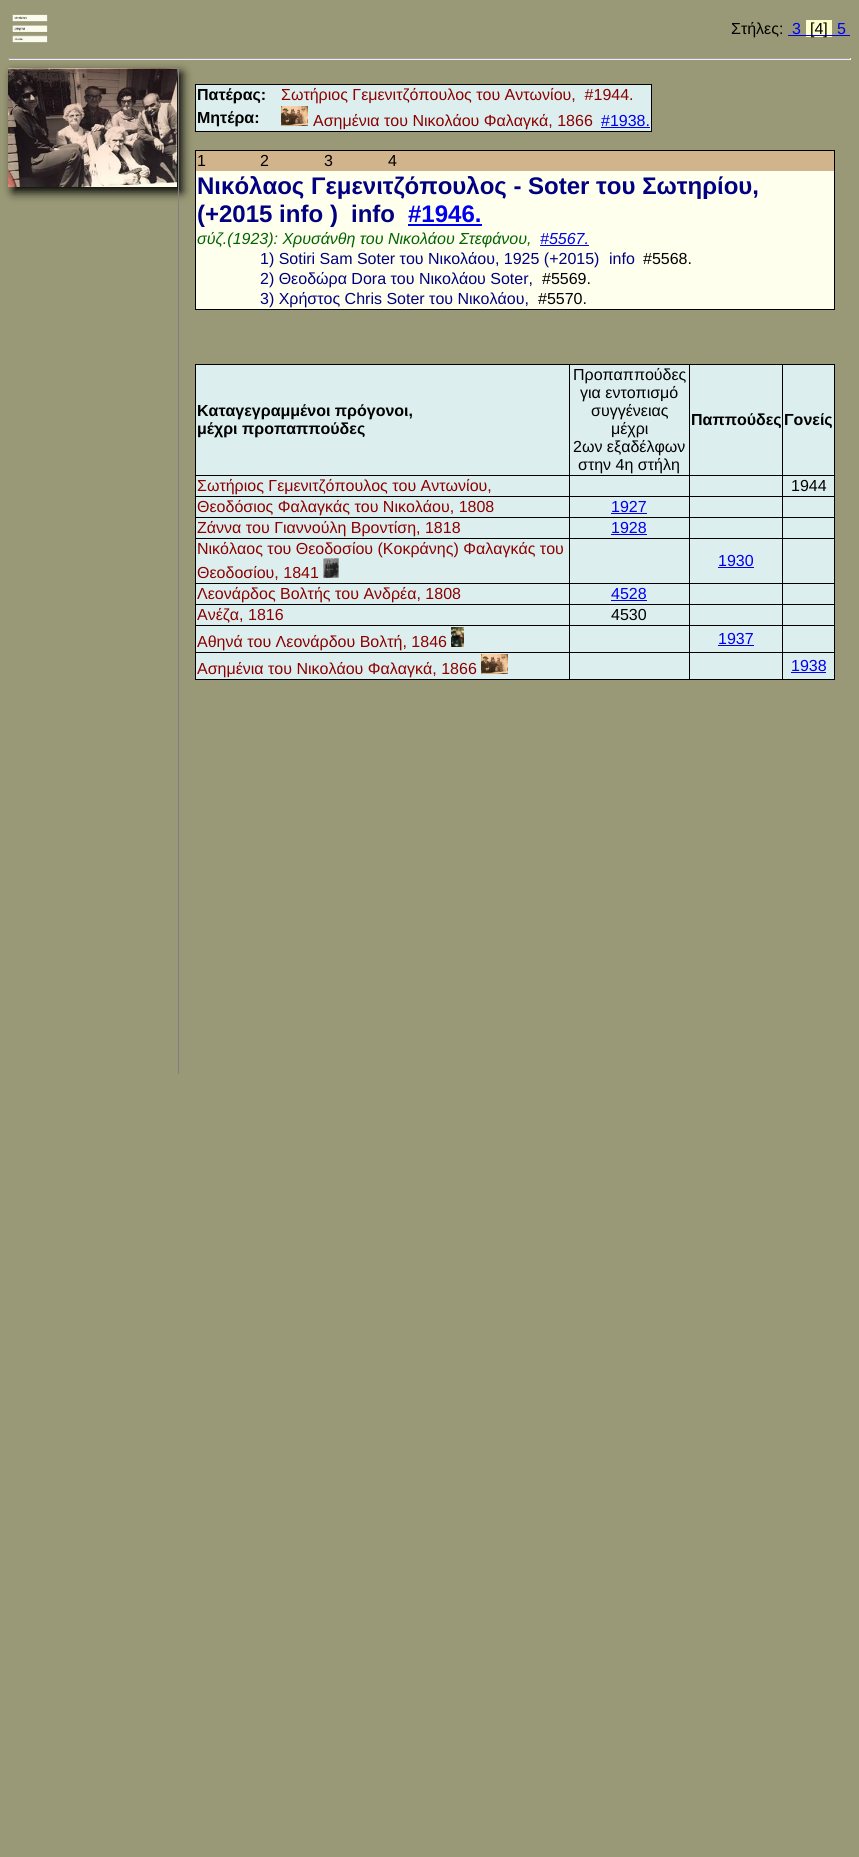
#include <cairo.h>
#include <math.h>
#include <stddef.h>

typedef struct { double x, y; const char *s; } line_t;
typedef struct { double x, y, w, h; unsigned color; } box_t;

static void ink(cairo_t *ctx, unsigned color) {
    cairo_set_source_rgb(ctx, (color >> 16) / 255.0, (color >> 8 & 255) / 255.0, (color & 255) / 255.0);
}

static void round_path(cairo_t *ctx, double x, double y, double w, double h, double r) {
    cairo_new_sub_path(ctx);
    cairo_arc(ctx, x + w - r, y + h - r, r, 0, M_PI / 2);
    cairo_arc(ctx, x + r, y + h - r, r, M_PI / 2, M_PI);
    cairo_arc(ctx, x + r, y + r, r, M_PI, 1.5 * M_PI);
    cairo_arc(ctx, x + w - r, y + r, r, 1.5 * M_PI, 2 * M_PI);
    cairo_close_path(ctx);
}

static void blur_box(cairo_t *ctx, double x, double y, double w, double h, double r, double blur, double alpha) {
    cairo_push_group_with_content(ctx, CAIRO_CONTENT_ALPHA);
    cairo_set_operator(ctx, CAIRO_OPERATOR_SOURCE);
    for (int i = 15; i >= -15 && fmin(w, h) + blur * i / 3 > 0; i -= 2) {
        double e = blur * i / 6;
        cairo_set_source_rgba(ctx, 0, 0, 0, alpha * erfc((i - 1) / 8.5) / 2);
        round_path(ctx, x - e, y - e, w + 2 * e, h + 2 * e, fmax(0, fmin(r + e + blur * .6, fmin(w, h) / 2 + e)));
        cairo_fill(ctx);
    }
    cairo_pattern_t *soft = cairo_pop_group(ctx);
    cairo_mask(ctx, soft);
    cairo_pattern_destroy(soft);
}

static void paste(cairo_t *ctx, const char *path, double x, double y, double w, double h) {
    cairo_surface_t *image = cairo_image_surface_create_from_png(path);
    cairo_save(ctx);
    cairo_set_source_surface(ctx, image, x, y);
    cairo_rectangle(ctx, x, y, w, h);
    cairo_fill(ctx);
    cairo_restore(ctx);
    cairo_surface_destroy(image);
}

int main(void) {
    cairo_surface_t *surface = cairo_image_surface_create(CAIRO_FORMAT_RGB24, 859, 1857);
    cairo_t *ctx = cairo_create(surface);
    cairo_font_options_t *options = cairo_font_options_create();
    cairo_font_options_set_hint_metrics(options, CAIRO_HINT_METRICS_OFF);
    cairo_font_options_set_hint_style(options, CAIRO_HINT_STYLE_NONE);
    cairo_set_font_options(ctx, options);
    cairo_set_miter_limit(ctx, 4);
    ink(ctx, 0x999977);
    cairo_paint(ctx);
    paste(ctx, "media/1.png", 12, 14, 36, 29);
    cairo_select_font_face(ctx, "Liberation Sans", CAIRO_FONT_SLANT_NORMAL, CAIRO_FONT_WEIGHT_NORMAL);
    cairo_set_font_size(ctx, 16);
    ink(ctx, 0x000000);
    cairo_move_to(ctx, 731, 34);
    cairo_show_text(ctx, "Στήλες:");
    ink(ctx, 0x0000EE);
    cairo_move_to(ctx, 792, 34);
    cairo_show_text(ctx, "3");
    {
        static const box_t items[] = {
            {788, 35, 18, 1, 0x0000EE},
            {806, 20, 26, 17, 0xFFFFCC},
            {806, 35, 44, 1, 0x0000EE},
        };
        for (size_t i = 0; i < sizeof items / sizeof *items; i++) {
            ink(ctx, items[i].color);
            cairo_rectangle(ctx, items[i].x, items[i].y, items[i].w, items[i].h);
            cairo_fill(ctx);
        }
    }
    ink(ctx, 0x000000);
    cairo_move_to(ctx, 810, 34);
    cairo_show_text(ctx, "[4]");
    ink(ctx, 0x0000EE);
    cairo_move_to(ctx, 837, 34);
    cairo_show_text(ctx, "5");
    ink(ctx, 0x000000);
    blur_box(ctx, 13, 73, 169, 119, 0, 5, 1);
    {
        static const box_t items[] = {
            {8, 58, 843, 1, 0x9F9F9F},
            {850, 58, 1, 2, 0xEEEEEE},
            {8, 59, 843, 1, 0xEEEEEE},
            {8, 58, 1, 2, 0x9F9F9F},
        };
        for (size_t i = 0; i < sizeof items / sizeof *items; i++) {
            ink(ctx, items[i].color);
            cairo_rectangle(ctx, items[i].x, items[i].y, items[i].w, items[i].h);
            cairo_fill(ctx);
        }
    }
    paste(ctx, "media/2.png", 8, 68, 169, 119);
    {
        static const box_t items[] = {
            {178, 68, 1, 1006, 0x808080},
            {196, 85, 455, 46, 0xDDEEEE},
            {195, 84, 457, 1, 0x000000},
            {651, 84, 1, 48, 0x000000},
            {195, 131, 457, 1, 0x000000},
            {195, 84, 1, 48, 0x000000},
        };
        for (size_t i = 0; i < sizeof items / sizeof *items; i++) {
            ink(ctx, items[i].color);
            cairo_rectangle(ctx, items[i].x, items[i].y, items[i].w, items[i].h);
            cairo_fill(ctx);
        }
    }
    cairo_select_font_face(ctx, "Liberation Sans", CAIRO_FONT_SLANT_NORMAL, CAIRO_FONT_WEIGHT_BOLD);
    cairo_move_to(ctx, 197, 100);
    cairo_show_text(ctx, "Πατέρας:");
    cairo_select_font_face(ctx, "Liberation Sans", CAIRO_FONT_SLANT_NORMAL, CAIRO_FONT_WEIGHT_NORMAL);
    ink(ctx, 0x8B0000);
    cairo_move_to(ctx, 281, 100);
    cairo_show_text(ctx, "Σωτήριος Γεμενιτζόπουλος του Αντωνίου,  #1944.");
    cairo_select_font_face(ctx, "Liberation Sans", CAIRO_FONT_SLANT_NORMAL, CAIRO_FONT_WEIGHT_BOLD);
    ink(ctx, 0x000000);
    cairo_move_to(ctx, 197, 123);
    cairo_show_text(ctx, "Μητέρα:");
    paste(ctx, "media/3.png", 281, 106, 27, 20);
    cairo_select_font_face(ctx, "Liberation Sans", CAIRO_FONT_SLANT_NORMAL, CAIRO_FONT_WEIGHT_NORMAL);
    ink(ctx, 0x8B0000);
    cairo_move_to(ctx, 313, 126);
    cairo_show_text(ctx, "Ασημένια του Νικολάου Φαλαγκά, 1866");
    ink(ctx, 0x0000EE);
    cairo_move_to(ctx, 601, 126);
    cairo_show_text(ctx, "#1938.");
    {
        static const box_t items[] = {
            {601, 127, 49, 1, 0x0000EE},
            {196, 171, 638, 138, 0xFFFFEE},
            {195, 150, 640, 1, 0x000000},
            {834, 150, 1, 160, 0x000000},
            {195, 309, 640, 1, 0x000000},
            {195, 150, 1, 160, 0x000000},
            {196, 151, 638, 20, 0xD2B48C},
        };
        for (size_t i = 0; i < sizeof items / sizeof *items; i++) {
            ink(ctx, items[i].color);
            cairo_rectangle(ctx, items[i].x, items[i].y, items[i].w, items[i].h);
            cairo_fill(ctx);
        }
    }
    ink(ctx, 0x000000);
    {
        static const line_t items[] = {
            {197, 166, "1"},
            {260, 166, "2"},
            {324, 166, "3"},
            {388, 166, "4"},
        };
        for (size_t i = 0; i < sizeof items / sizeof *items; i++) {
            cairo_move_to(ctx, items[i].x, items[i].y);
            cairo_show_text(ctx, items[i].s);
        }
    }
    cairo_select_font_face(ctx, "Liberation Sans", CAIRO_FONT_SLANT_NORMAL, CAIRO_FONT_WEIGHT_BOLD);
    cairo_set_font_size(ctx, 24);
    ink(ctx, 0x000080);
    {
        static const line_t items[] = {
            {197, 194, "Νικόλαος Γεμενιτζόπουλος - Soter του Σωτηρίου,"},
            {197, 222, "(+2015 info"},
            {330, 222, ")"},
            {351, 222, "info"},
        };
        for (size_t i = 0; i < sizeof items / sizeof *items; i++) {
            cairo_move_to(ctx, items[i].x, items[i].y);
            cairo_show_text(ctx, items[i].s);
        }
    }
    ink(ctx, 0x0000EE);
    cairo_move_to(ctx, 408, 222);
    cairo_show_text(ctx, "#1946.");
    cairo_rectangle(ctx, 408, 224, 74, 2);
    cairo_fill(ctx);
    cairo_select_font_face(ctx, "Liberation Sans", CAIRO_FONT_SLANT_ITALIC, CAIRO_FONT_WEIGHT_NORMAL);
    cairo_set_font_size(ctx, 16);
    ink(ctx, 0x006400);
    cairo_move_to(ctx, 197, 244);
    cairo_show_text(ctx, "σύζ.(1923): Χρυσάνθη του Νικολάου Στεφάνου,");
    ink(ctx, 0x0000EE);
    cairo_move_to(ctx, 540, 244);
    cairo_show_text(ctx, "#5567.");
    cairo_rectangle(ctx, 540, 245, 49, 1);
    cairo_fill(ctx);
    cairo_select_font_face(ctx, "Liberation Sans", CAIRO_FONT_SLANT_NORMAL, CAIRO_FONT_WEIGHT_NORMAL);
    ink(ctx, 0x000080);
    cairo_move_to(ctx, 260, 264);
    cairo_show_text(ctx, "1) Sotiri Sam Soter του Νικολάου, 1925 (+2015)");
    cairo_move_to(ctx, 609, 264);
    cairo_show_text(ctx, "info");
    ink(ctx, 0x000000);
    cairo_move_to(ctx, 643, 264);
    cairo_show_text(ctx, "#5568.");
    ink(ctx, 0x000080);
    cairo_move_to(ctx, 260, 284);
    cairo_show_text(ctx, "2) Θεοδώρα Dora του Νικολάου Soter,");
    ink(ctx, 0x000000);
    cairo_move_to(ctx, 542, 284);
    cairo_show_text(ctx, "#5569.");
    ink(ctx, 0x000080);
    cairo_move_to(ctx, 260, 304);
    cairo_show_text(ctx, "3) Χρήστος Chris Soter του Νικολάου,");
    ink(ctx, 0x000000);
    cairo_move_to(ctx, 538, 304);
    cairo_show_text(ctx, "#5570.");
    {
        static const box_t items[] = {
            {196, 365, 373, 110, 0xDDEEEE},
            {782, 364, 53, 1, 0x000000},
            {782, 475, 53, 1, 0x000000},
            {782, 496, 53, 1, 0x000000},
            {782, 517, 53, 1, 0x000000},
            {782, 538, 53, 1, 0x000000},
            {782, 583, 53, 1, 0x000000},
            {782, 604, 53, 1, 0x000000},
            {782, 625, 53, 1, 0x000000},
            {782, 652, 53, 1, 0x000000},
            {834, 652, 1, 28, 0x000000},
            {782, 679, 53, 1, 0x000000},
            {782, 652, 1, 28, 0x000000},
            {689, 652, 94, 1, 0x000000},
            {782, 625, 1, 28, 0x000000},
            {689, 625, 94, 1, 0x000000},
            {782, 604, 1, 22, 0x000000},
            {689, 604, 94, 1, 0x000000},
            {782, 583, 1, 22, 0x000000},
            {689, 583, 94, 1, 0x000000},
            {782, 538, 1, 46, 0x000000},
            {689, 538, 94, 1, 0x000000},
            {782, 517, 1, 22, 0x000000},
            {689, 517, 94, 1, 0x000000},
            {782, 496, 1, 22, 0x000000},
            {689, 496, 94, 1, 0x000000},
            {782, 475, 1, 22, 0x000000},
            {689, 475, 94, 1, 0x000000},
            {782, 364, 1, 112, 0x000000},
            {689, 364, 94, 1, 0x000000},
            {689, 679, 94, 1, 0x000000},
            {689, 652, 1, 28, 0x000000},
            {569, 652, 121, 1, 0x000000},
            {689, 625, 1, 28, 0x000000},
            {569, 625, 121, 1, 0x000000},
            {689, 604, 1, 22, 0x000000},
            {569, 604, 121, 1, 0x000000},
            {689, 583, 1, 22, 0x000000},
            {569, 583, 121, 1, 0x000000},
            {689, 538, 1, 46, 0x000000},
            {569, 538, 121, 1, 0x000000},
            {689, 517, 1, 22, 0x000000},
            {569, 517, 121, 1, 0x000000},
            {689, 496, 1, 22, 0x000000},
            {569, 496, 121, 1, 0x000000},
            {689, 475, 1, 22, 0x000000},
            {569, 475, 121, 1, 0x000000},
            {689, 364, 1, 112, 0x000000},
            {569, 364, 121, 1, 0x000000},
            {569, 679, 121, 1, 0x000000},
            {569, 652, 1, 28, 0x000000},
            {195, 652, 375, 1, 0x000000},
            {569, 625, 1, 28, 0x000000},
            {195, 625, 375, 1, 0x000000},
            {569, 604, 1, 22, 0x000000},
            {195, 604, 375, 1, 0x000000},
            {569, 583, 1, 22, 0x000000},
            {195, 583, 375, 1, 0x000000},
            {569, 538, 1, 46, 0x000000},
            {195, 538, 375, 1, 0x000000},
            {569, 517, 1, 22, 0x000000},
            {195, 517, 375, 1, 0x000000},
            {569, 496, 1, 22, 0x000000},
            {195, 496, 375, 1, 0x000000},
            {569, 475, 1, 22, 0x000000},
            {195, 475, 375, 1, 0x000000},
            {569, 364, 1, 112, 0x000000},
            {195, 364, 375, 1, 0x000000},
            {195, 679, 375, 1, 0x000000},
            {195, 652, 1, 28, 0x000000},
            {195, 625, 1, 28, 0x000000},
            {195, 604, 1, 22, 0x000000},
            {195, 583, 1, 22, 0x000000},
            {195, 538, 1, 46, 0x000000},
            {195, 517, 1, 22, 0x000000},
            {195, 496, 1, 22, 0x000000},
            {195, 475, 1, 22, 0x000000},
            {195, 364, 1, 112, 0x000000},
        };
        for (size_t i = 0; i < sizeof items / sizeof *items; i++) {
            ink(ctx, items[i].color);
            cairo_rectangle(ctx, items[i].x, items[i].y, items[i].w, items[i].h);
            cairo_fill(ctx);
        }
    }
    cairo_select_font_face(ctx, "Liberation Sans", CAIRO_FONT_SLANT_NORMAL, CAIRO_FONT_WEIGHT_BOLD);
    cairo_move_to(ctx, 197, 416);
    cairo_show_text(ctx, "Καταγεγραμμένοι πρόγονοι,");
    cairo_move_to(ctx, 197, 434);
    cairo_show_text(ctx, "μέχρι προπαππούδες");
    ink(ctx, 0xDDEEEE);
    cairo_rectangle(ctx, 570, 365, 119, 110);
    cairo_fill(ctx);
    cairo_select_font_face(ctx, "Liberation Sans", CAIRO_FONT_SLANT_NORMAL, CAIRO_FONT_WEIGHT_NORMAL);
    ink(ctx, 0x000000);
    {
        static const line_t items[] = {
            {573, 380, "Προπαππούδες"},
            {580, 398, "για εντοπισμό"},
            {591, 416, "συγγένειας"},
            {611, 434, "μέχρι"},
            {573, 452, "2ων εξαδέλφων"},
            {578, 470, "στην 4η στήλη"},
        };
        for (size_t i = 0; i < sizeof items / sizeof *items; i++) {
            cairo_move_to(ctx, items[i].x, items[i].y);
            cairo_show_text(ctx, items[i].s);
        }
    }
    ink(ctx, 0xDDEEEE);
    cairo_rectangle(ctx, 690, 365, 92, 110);
    cairo_fill(ctx);
    cairo_select_font_face(ctx, "Liberation Sans", CAIRO_FONT_SLANT_NORMAL, CAIRO_FONT_WEIGHT_BOLD);
    ink(ctx, 0x000000);
    cairo_move_to(ctx, 691, 425);
    cairo_show_text(ctx, "Παππούδες");
    {
        static const box_t items[] = {
            {783, 365, 51, 110, 0xDDEEEE},
            {834, 625, 1, 28, 0x000000},
            {834, 604, 1, 22, 0x000000},
            {834, 583, 1, 22, 0x000000},
            {834, 538, 1, 46, 0x000000},
            {834, 517, 1, 22, 0x000000},
            {834, 496, 1, 22, 0x000000},
            {834, 475, 1, 22, 0x000000},
            {834, 364, 1, 112, 0x000000},
        };
        for (size_t i = 0; i < sizeof items / sizeof *items; i++) {
            ink(ctx, items[i].color);
            cairo_rectangle(ctx, items[i].x, items[i].y, items[i].w, items[i].h);
            cairo_fill(ctx);
        }
    }
    cairo_move_to(ctx, 784, 425);
    cairo_show_text(ctx, "Γονείς");
    ink(ctx, 0xDDEEEE);
    cairo_rectangle(ctx, 196, 476, 373, 20);
    cairo_fill(ctx);
    cairo_select_font_face(ctx, "Liberation Sans", CAIRO_FONT_SLANT_NORMAL, CAIRO_FONT_WEIGHT_NORMAL);
    ink(ctx, 0x8B0000);
    cairo_move_to(ctx, 197, 491);
    cairo_show_text(ctx, "Σωτήριος Γεμενιτζόπουλος του Αντωνίου,");
    {
        static const box_t items[] = {
            {570, 476, 119, 20, 0xDDEEEE},
            {690, 476, 92, 20, 0xDDEEEE},
            {783, 476, 51, 20, 0xDDEEEE},
        };
        for (size_t i = 0; i < sizeof items / sizeof *items; i++) {
            ink(ctx, items[i].color);
            cairo_rectangle(ctx, items[i].x, items[i].y, items[i].w, items[i].h);
            cairo_fill(ctx);
        }
    }
    ink(ctx, 0x000000);
    cairo_move_to(ctx, 791, 491);
    cairo_show_text(ctx, "1944");
    ink(ctx, 0xDDEEEE);
    cairo_rectangle(ctx, 196, 497, 373, 20);
    cairo_fill(ctx);
    ink(ctx, 0x8B0000);
    cairo_move_to(ctx, 197, 512);
    cairo_show_text(ctx, "Θεοδόσιος Φαλαγκάς του Νικολάου, 1808");
    ink(ctx, 0xDDEEEE);
    cairo_rectangle(ctx, 570, 497, 119, 20);
    cairo_fill(ctx);
    ink(ctx, 0x0000EE);
    cairo_move_to(ctx, 611, 512);
    cairo_show_text(ctx, "1927");
    {
        static const box_t items[] = {
            {611, 513, 36, 1, 0x0000EE},
            {690, 497, 92, 20, 0xDDEEEE},
            {783, 497, 51, 20, 0xDDEEEE},
            {196, 518, 373, 20, 0xDDEEEE},
        };
        for (size_t i = 0; i < sizeof items / sizeof *items; i++) {
            ink(ctx, items[i].color);
            cairo_rectangle(ctx, items[i].x, items[i].y, items[i].w, items[i].h);
            cairo_fill(ctx);
        }
    }
    ink(ctx, 0x8B0000);
    cairo_move_to(ctx, 197, 533);
    cairo_show_text(ctx, "Ζάννα του Γιαννούλη Βροντίση, 1818");
    ink(ctx, 0xDDEEEE);
    cairo_rectangle(ctx, 570, 518, 119, 20);
    cairo_fill(ctx);
    ink(ctx, 0x0000EE);
    cairo_move_to(ctx, 611, 533);
    cairo_show_text(ctx, "1928");
    {
        static const box_t items[] = {
            {611, 534, 36, 1, 0x0000EE},
            {690, 518, 92, 20, 0xDDEEEE},
            {783, 518, 51, 20, 0xDDEEEE},
            {196, 539, 373, 44, 0xDDEEEE},
        };
        for (size_t i = 0; i < sizeof items / sizeof *items; i++) {
            ink(ctx, items[i].color);
            cairo_rectangle(ctx, items[i].x, items[i].y, items[i].w, items[i].h);
            cairo_fill(ctx);
        }
    }
    ink(ctx, 0x8B0000);
    cairo_move_to(ctx, 197, 554);
    cairo_show_text(ctx, "Νικόλαος του Θεοδοσίου (Κοκράνης) Φαλαγκάς του");
    cairo_move_to(ctx, 197, 578);
    cairo_show_text(ctx, "Θεοδοσίου, 1841");
    paste(ctx, "media/4.png", 323, 558, 16, 20);
    ink(ctx, 0xDDEEEE);
    cairo_rectangle(ctx, 570, 539, 119, 44);
    cairo_fill(ctx);
    cairo_rectangle(ctx, 690, 539, 92, 44);
    cairo_fill(ctx);
    ink(ctx, 0x0000EE);
    cairo_move_to(ctx, 718, 566);
    cairo_show_text(ctx, "1930");
    {
        static const box_t items[] = {
            {718, 567, 36, 1, 0x0000EE},
            {783, 539, 51, 44, 0xDDEEEE},
            {196, 584, 373, 20, 0xDDEEEE},
        };
        for (size_t i = 0; i < sizeof items / sizeof *items; i++) {
            ink(ctx, items[i].color);
            cairo_rectangle(ctx, items[i].x, items[i].y, items[i].w, items[i].h);
            cairo_fill(ctx);
        }
    }
    ink(ctx, 0x8B0000);
    cairo_move_to(ctx, 197, 599);
    cairo_show_text(ctx, "Λεονάρδος Βολτής του Ανδρέα, 1808");
    ink(ctx, 0xDDEEEE);
    cairo_rectangle(ctx, 570, 584, 119, 20);
    cairo_fill(ctx);
    ink(ctx, 0x0000EE);
    cairo_move_to(ctx, 611, 599);
    cairo_show_text(ctx, "4528");
    {
        static const box_t items[] = {
            {611, 600, 36, 1, 0x0000EE},
            {690, 584, 92, 20, 0xDDEEEE},
            {783, 584, 51, 20, 0xDDEEEE},
            {196, 605, 373, 20, 0xDDEEEE},
        };
        for (size_t i = 0; i < sizeof items / sizeof *items; i++) {
            ink(ctx, items[i].color);
            cairo_rectangle(ctx, items[i].x, items[i].y, items[i].w, items[i].h);
            cairo_fill(ctx);
        }
    }
    ink(ctx, 0x8B0000);
    cairo_move_to(ctx, 197, 620);
    cairo_show_text(ctx, "Ανέζα, 1816");
    ink(ctx, 0xDDEEEE);
    cairo_rectangle(ctx, 570, 605, 119, 20);
    cairo_fill(ctx);
    ink(ctx, 0x000000);
    cairo_move_to(ctx, 611, 620);
    cairo_show_text(ctx, "4530");
    {
        static const box_t items[] = {
            {690, 605, 92, 20, 0xDDEEEE},
            {783, 605, 51, 20, 0xDDEEEE},
            {196, 626, 373, 26, 0xDDEEEE},
        };
        for (size_t i = 0; i < sizeof items / sizeof *items; i++) {
            ink(ctx, items[i].color);
            cairo_rectangle(ctx, items[i].x, items[i].y, items[i].w, items[i].h);
            cairo_fill(ctx);
        }
    }
    ink(ctx, 0x8B0000);
    cairo_move_to(ctx, 197, 647);
    cairo_show_text(ctx, "Αθηνά του Λεονάρδου Βολτή, 1846");
    paste(ctx, "media/5.png", 451, 627, 13, 20);
    ink(ctx, 0xDDEEEE);
    cairo_rectangle(ctx, 570, 626, 119, 26);
    cairo_fill(ctx);
    cairo_rectangle(ctx, 690, 626, 92, 26);
    cairo_fill(ctx);
    ink(ctx, 0x0000EE);
    cairo_move_to(ctx, 718, 644);
    cairo_show_text(ctx, "1937");
    {
        static const box_t items[] = {
            {718, 645, 36, 1, 0x0000EE},
            {783, 626, 51, 26, 0xDDEEEE},
            {196, 653, 373, 26, 0xDDEEEE},
        };
        for (size_t i = 0; i < sizeof items / sizeof *items; i++) {
            ink(ctx, items[i].color);
            cairo_rectangle(ctx, items[i].x, items[i].y, items[i].w, items[i].h);
            cairo_fill(ctx);
        }
    }
    ink(ctx, 0x8B0000);
    cairo_move_to(ctx, 197, 674);
    cairo_show_text(ctx, "Ασημένια του Νικολάου Φαλαγκά, 1866");
    paste(ctx, "media/3.png", 481, 654, 27, 20);
    {
        static const box_t items[] = {
            {570, 653, 119, 26, 0xDDEEEE},
            {690, 653, 92, 26, 0xDDEEEE},
            {783, 653, 51, 26, 0xDDEEEE},
        };
        for (size_t i = 0; i < sizeof items / sizeof *items; i++) {
            ink(ctx, items[i].color);
            cairo_rectangle(ctx, items[i].x, items[i].y, items[i].w, items[i].h);
            cairo_fill(ctx);
        }
    }
    ink(ctx, 0x0000EE);
    cairo_move_to(ctx, 791, 671);
    cairo_show_text(ctx, "1938");
    cairo_rectangle(ctx, 791, 672, 35, 1);
    cairo_fill(ctx);
    cairo_surface_write_to_png(surface, "image.png");
    cairo_font_options_destroy(options);
    cairo_destroy(ctx);
    cairo_surface_destroy(surface);
    return 0;
}
